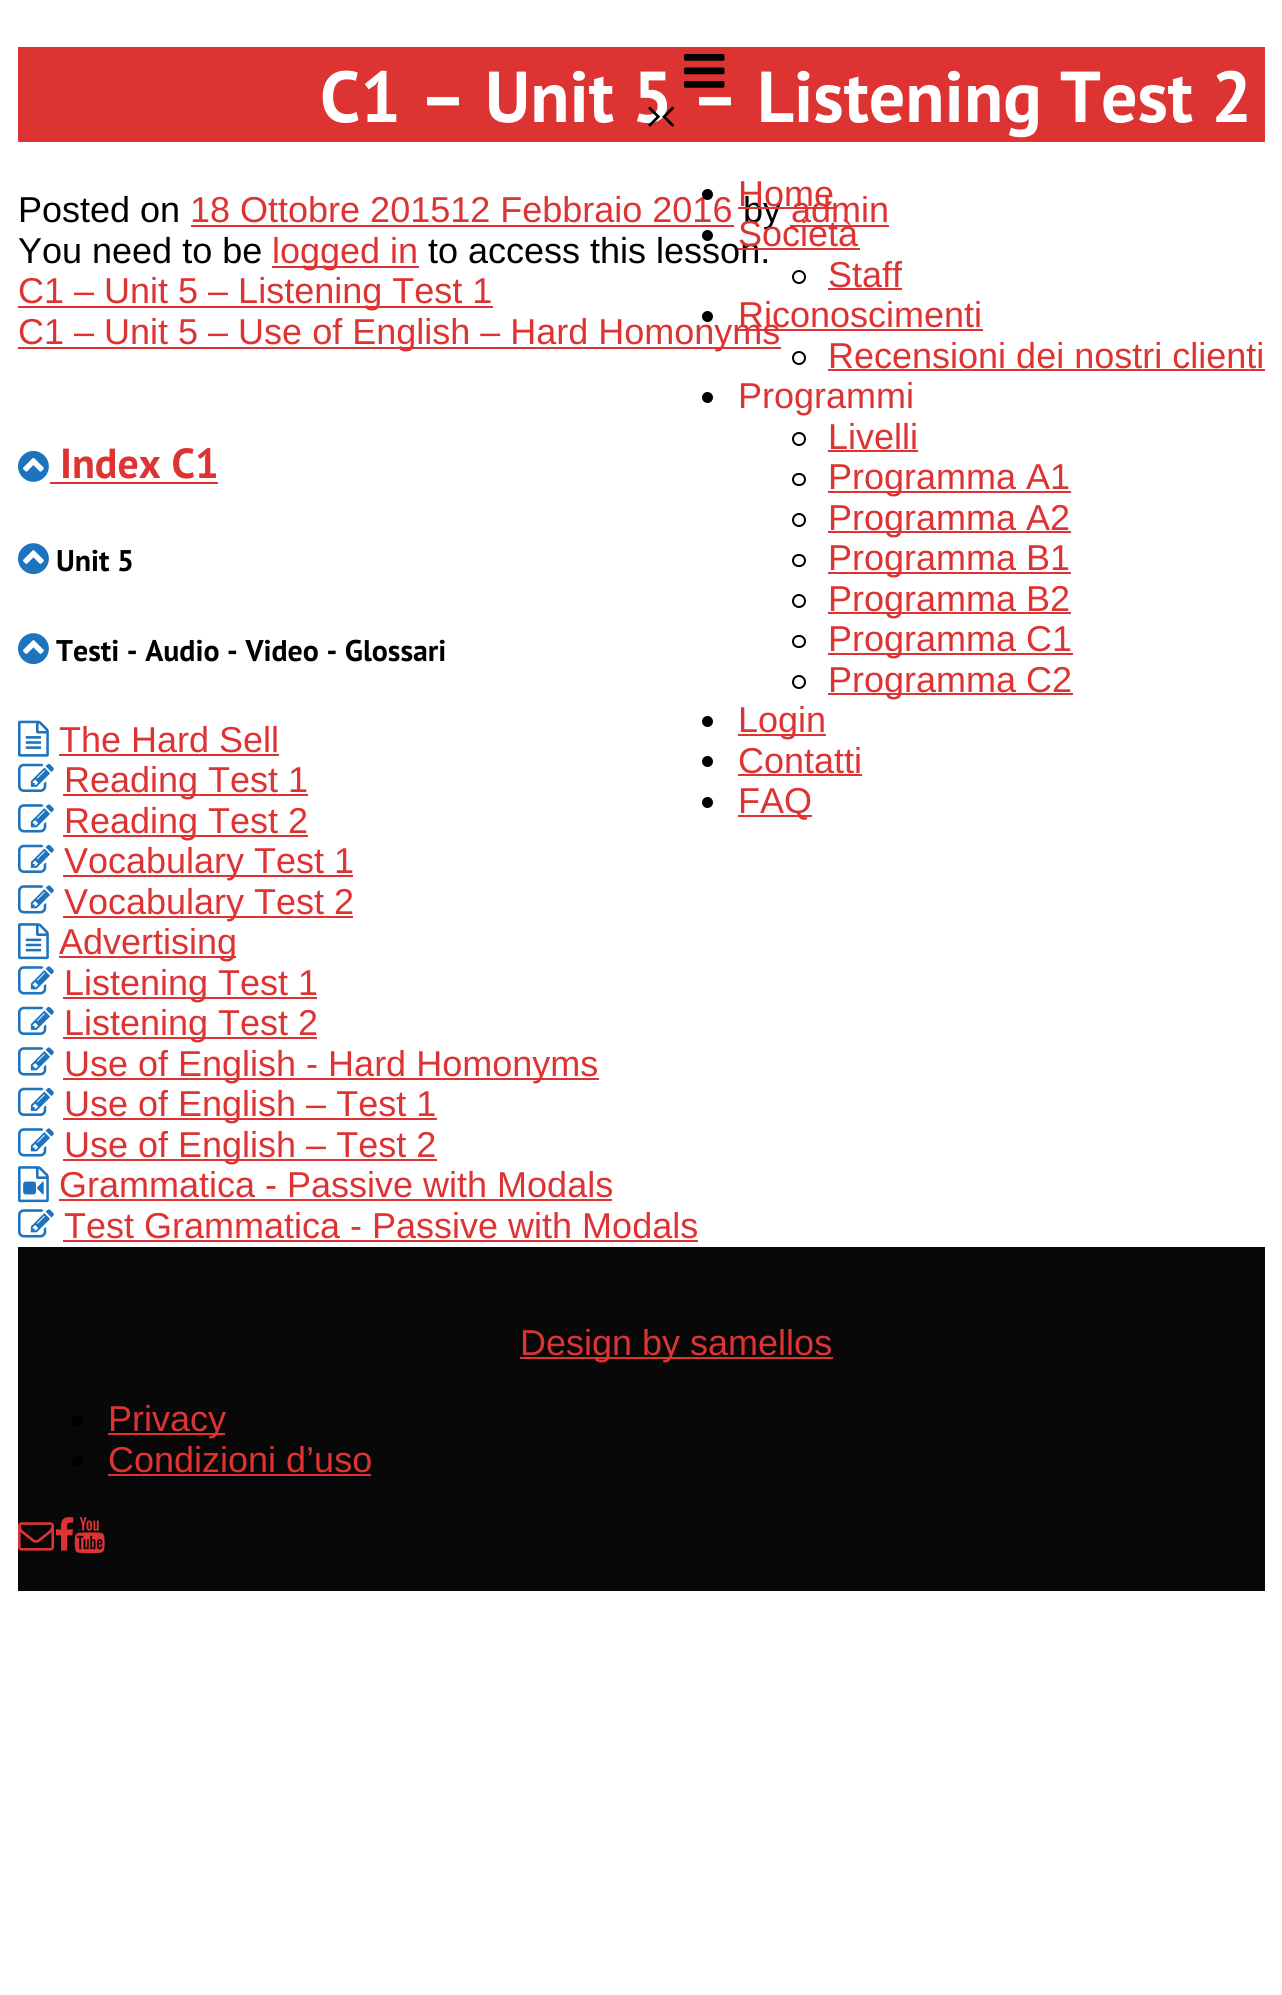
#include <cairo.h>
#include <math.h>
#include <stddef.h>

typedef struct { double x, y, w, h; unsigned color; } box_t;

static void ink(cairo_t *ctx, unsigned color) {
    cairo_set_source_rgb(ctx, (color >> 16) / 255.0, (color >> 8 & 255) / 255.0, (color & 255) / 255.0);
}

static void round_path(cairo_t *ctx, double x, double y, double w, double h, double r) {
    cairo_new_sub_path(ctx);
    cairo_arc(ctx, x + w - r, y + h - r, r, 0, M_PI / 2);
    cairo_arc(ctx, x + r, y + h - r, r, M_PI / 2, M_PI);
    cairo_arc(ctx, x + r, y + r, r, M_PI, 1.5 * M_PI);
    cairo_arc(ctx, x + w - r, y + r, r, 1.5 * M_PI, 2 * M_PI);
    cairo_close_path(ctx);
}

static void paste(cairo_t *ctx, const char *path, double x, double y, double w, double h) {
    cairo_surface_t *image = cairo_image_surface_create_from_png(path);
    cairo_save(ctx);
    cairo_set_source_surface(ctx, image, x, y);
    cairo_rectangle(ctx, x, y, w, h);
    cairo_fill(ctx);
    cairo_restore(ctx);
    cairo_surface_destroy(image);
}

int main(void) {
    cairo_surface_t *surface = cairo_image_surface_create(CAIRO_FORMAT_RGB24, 1282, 1995);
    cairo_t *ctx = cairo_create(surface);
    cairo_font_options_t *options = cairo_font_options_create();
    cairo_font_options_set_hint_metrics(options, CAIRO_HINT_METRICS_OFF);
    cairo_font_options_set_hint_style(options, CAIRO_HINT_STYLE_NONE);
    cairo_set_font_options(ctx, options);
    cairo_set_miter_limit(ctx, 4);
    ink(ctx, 0xFFFFFF);
    cairo_paint(ctx);
    ink(ctx, 0xDD3333);
    cairo_rectangle(ctx, 18, 47, 1247, 95);
    cairo_fill(ctx);
    cairo_select_font_face(ctx, "PT Sans", CAIRO_FONT_SLANT_NORMAL, CAIRO_FONT_WEIGHT_BOLD);
    cairo_set_font_size(ctx, 72);
    ink(ctx, 0xFFFFFF);
    cairo_move_to(ctx, 320, 122);
    cairo_show_text(ctx, "C1 – Unit 5 – Listening Test 2");
    cairo_select_font_face(ctx, "Liberation Sans", CAIRO_FONT_SLANT_NORMAL, CAIRO_FONT_WEIGHT_NORMAL);
    cairo_set_font_size(ctx, 36);
    ink(ctx, 0x000000);
    cairo_move_to(ctx, 18, 222);
    cairo_show_text(ctx, "Posted on");
    ink(ctx, 0xDD3333);
    cairo_move_to(ctx, 190, 222);
    cairo_show_text(ctx, "18 Ottobre 201512 Febbraio 2016");
    cairo_rectangle(ctx, 191, 225, 543, 2);
    cairo_fill(ctx);
    ink(ctx, 0x000000);
    cairo_move_to(ctx, 743, 222);
    cairo_show_text(ctx, "by");
    ink(ctx, 0xDD3333);
    cairo_move_to(ctx, 791, 222);
    cairo_show_text(ctx, "admin");
    cairo_rectangle(ctx, 790, 225, 99, 2);
    cairo_fill(ctx);
    ink(ctx, 0x000000);
    cairo_move_to(ctx, 18, 263);
    cairo_show_text(ctx, "You need to be");
    ink(ctx, 0xDD3333);
    cairo_rectangle(ctx, 272, 266, 147, 2);
    cairo_fill(ctx);
    cairo_move_to(ctx, 272, 263);
    cairo_show_text(ctx, "logged in");
    ink(ctx, 0x000000);
    cairo_move_to(ctx, 428, 263);
    cairo_show_text(ctx, "to access this lesson.");
    ink(ctx, 0xDD3333);
    cairo_rectangle(ctx, 18, 306, 475, 2);
    cairo_fill(ctx);
    cairo_move_to(ctx, 18, 303);
    cairo_show_text(ctx, "C1 – Unit 5 – Listening Test 1");
    cairo_rectangle(ctx, 18, 347, 763, 2);
    cairo_fill(ctx);
    cairo_move_to(ctx, 18, 344);
    cairo_show_text(ctx, "C1 – Unit 5 – Use of English – Hard Homonyms");
    paste(ctx, "media/1.png", 18, 451, 31, 31);
    cairo_select_font_face(ctx, "PT Sans", CAIRO_FONT_SLANT_NORMAL, CAIRO_FONT_WEIGHT_BOLD);
    cairo_set_font_size(ctx, 42);
    cairo_move_to(ctx, 60, 478);
    cairo_show_text(ctx, "Index C1");
    cairo_rectangle(ctx, 50, 482, 168, 2);
    cairo_fill(ctx);
    paste(ctx, "media/2.png", 18, 543, 31, 32);
    cairo_set_font_size(ctx, 29.9);
    ink(ctx, 0x000000);
    cairo_move_to(ctx, 56, 571);
    cairo_show_text(ctx, "Unit 5");
    paste(ctx, "media/2.png", 18, 633, 31, 32);
    cairo_move_to(ctx, 56, 661);
    cairo_show_text(ctx, "Testi - Audio - Video - Glossari");
    paste(ctx, "media/3.png", 18, 720, 31, 37);
    cairo_select_font_face(ctx, "Liberation Sans", CAIRO_FONT_SLANT_NORMAL, CAIRO_FONT_WEIGHT_NORMAL);
    cairo_set_font_size(ctx, 36);
    ink(ctx, 0xDD3333);
    cairo_move_to(ctx, 59, 752);
    cairo_show_text(ctx, "The Hard Sell");
    cairo_rectangle(ctx, 59, 754, 220, 2);
    cairo_fill(ctx);
    paste(ctx, "media/4.png", 18, 763, 36, 29);
    cairo_rectangle(ctx, 63, 794, 245, 2);
    cairo_fill(ctx);
    cairo_move_to(ctx, 64, 792);
    cairo_show_text(ctx, "Reading Test 1");
    paste(ctx, "media/5.png", 18, 804, 36, 29);
    cairo_rectangle(ctx, 63, 835, 245, 2);
    cairo_fill(ctx);
    cairo_move_to(ctx, 64, 833);
    cairo_show_text(ctx, "Reading Test 2");
    paste(ctx, "media/4.png", 18, 844, 36, 29);
    cairo_rectangle(ctx, 63, 875, 290, 2);
    cairo_fill(ctx);
    cairo_move_to(ctx, 64, 873);
    cairo_show_text(ctx, "Vocabulary Test 1");
    paste(ctx, "media/5.png", 18, 885, 36, 29);
    cairo_rectangle(ctx, 63, 916, 290, 2);
    cairo_fill(ctx);
    cairo_move_to(ctx, 64, 914);
    cairo_show_text(ctx, "Vocabulary Test 2");
    paste(ctx, "media/6.png", 18, 923, 31, 37);
    cairo_rectangle(ctx, 59, 956, 177, 2);
    cairo_fill(ctx);
    cairo_move_to(ctx, 59, 954);
    cairo_show_text(ctx, "Advertising");
    paste(ctx, "media/5.png", 18, 966, 36, 29);
    cairo_rectangle(ctx, 63, 997, 254, 2);
    cairo_fill(ctx);
    cairo_move_to(ctx, 64, 995);
    cairo_show_text(ctx, "Listening Test 1");
    paste(ctx, "media/4.png", 18, 1006, 36, 29);
    cairo_rectangle(ctx, 63, 1037, 254, 2);
    cairo_fill(ctx);
    cairo_move_to(ctx, 64, 1035);
    cairo_show_text(ctx, "Listening Test 2");
    paste(ctx, "media/5.png", 18, 1047, 36, 29);
    cairo_rectangle(ctx, 63, 1078, 536, 2);
    cairo_fill(ctx);
    cairo_move_to(ctx, 64, 1076);
    cairo_show_text(ctx, "Use of English - Hard Homonyms");
    paste(ctx, "media/4.png", 18, 1087, 36, 29);
    cairo_rectangle(ctx, 63, 1118, 374, 2);
    cairo_fill(ctx);
    cairo_move_to(ctx, 64, 1116);
    cairo_show_text(ctx, "Use of English – Test 1");
    paste(ctx, "media/5.png", 18, 1128, 36, 29);
    cairo_rectangle(ctx, 63, 1159, 374, 2);
    cairo_fill(ctx);
    cairo_move_to(ctx, 64, 1157);
    cairo_show_text(ctx, "Use of English – Test 2");
    paste(ctx, "media/7.png", 18, 1166, 31, 37);
    cairo_move_to(ctx, 59, 1197);
    cairo_show_text(ctx, "Grammatica - Passive with Modals");
    cairo_rectangle(ctx, 59, 1199, 553, 2);
    cairo_fill(ctx);
    paste(ctx, "media/5.png", 18, 1209, 36, 29);
    cairo_move_to(ctx, 64, 1238);
    cairo_show_text(ctx, "Test Grammatica - Passive with Modals");
    cairo_rectangle(ctx, 63, 1240, 635, 2);
    cairo_fill(ctx);
    paste(ctx, "media/8.png", 684, 54, 41, 34);
    paste(ctx, "media/9.png", 648, 106, 12, 21);
    paste(ctx, "media/10.png", 662, 106, 13, 21);
    ink(ctx, 0x000000);
    cairo_arc(ctx, 707.5, 194.5, 5.5, 0, 2 * M_PI);
    cairo_fill(ctx);
    ink(ctx, 0xDD3333);
    cairo_move_to(ctx, 738, 206);
    cairo_show_text(ctx, "Home");
    cairo_rectangle(ctx, 738, 207, 97, 2);
    cairo_fill(ctx);
    ink(ctx, 0x000000);
    cairo_arc(ctx, 707.5, 235.5, 5.5, 0, 2 * M_PI);
    cairo_fill(ctx);
    ink(ctx, 0xDD3333);
    cairo_move_to(ctx, 738, 246);
    cairo_show_text(ctx, "Società");
    cairo_rectangle(ctx, 738, 248, 122, 2);
    cairo_fill(ctx);
    cairo_arc(ctx, 799, 277, 6, 0, 2 * M_PI);
    ink(ctx, 0x000000);
    cairo_stroke(ctx);
    ink(ctx, 0xDD3333);
    cairo_move_to(ctx, 828, 287);
    cairo_show_text(ctx, "Staff");
    cairo_rectangle(ctx, 828, 288, 74, 2);
    cairo_fill(ctx);
    ink(ctx, 0x000000);
    cairo_arc(ctx, 707.5, 316.5, 5.5, 0, 2 * M_PI);
    cairo_fill(ctx);
    ink(ctx, 0xDD3333);
    cairo_move_to(ctx, 738, 327);
    cairo_show_text(ctx, "Riconoscimenti");
    cairo_rectangle(ctx, 738, 329, 245, 2);
    cairo_fill(ctx);
    cairo_arc(ctx, 799, 358, 6, 0, 2 * M_PI);
    ink(ctx, 0x000000);
    cairo_stroke(ctx);
    ink(ctx, 0xDD3333);
    cairo_move_to(ctx, 828, 368);
    cairo_show_text(ctx, "Recensioni dei nostri clienti");
    cairo_rectangle(ctx, 828, 369, 437, 2);
    cairo_fill(ctx);
    ink(ctx, 0x000000);
    cairo_arc(ctx, 707.5, 397.5, 5.5, 0, 2 * M_PI);
    cairo_fill(ctx);
    ink(ctx, 0xDD3333);
    cairo_move_to(ctx, 738, 408);
    cairo_show_text(ctx, "Programmi");
    cairo_new_path(ctx);
    cairo_arc(ctx, 799, 439, 6, 0, 2 * M_PI);
    ink(ctx, 0x000000);
    cairo_stroke(ctx);
    ink(ctx, 0xDD3333);
    cairo_move_to(ctx, 828, 449);
    cairo_show_text(ctx, "Livelli");
    cairo_rectangle(ctx, 828, 450, 90, 2);
    cairo_fill(ctx);
    round_path(ctx, 793, 474, 12, 11, 5.5);
    ink(ctx, 0x000000);
    cairo_stroke(ctx);
    ink(ctx, 0xDD3333);
    cairo_rectangle(ctx, 828, 491, 243, 2);
    cairo_fill(ctx);
    cairo_move_to(ctx, 828, 489);
    cairo_show_text(ctx, "Programma A1");
    cairo_new_path(ctx);
    cairo_arc(ctx, 799, 520, 6, 0, 2 * M_PI);
    ink(ctx, 0x000000);
    cairo_stroke(ctx);
    ink(ctx, 0xDD3333);
    cairo_rectangle(ctx, 828, 531, 243, 2);
    cairo_fill(ctx);
    cairo_move_to(ctx, 828, 530);
    cairo_show_text(ctx, "Programma A2");
    round_path(ctx, 793, 555, 12, 11, 5.5);
    ink(ctx, 0x000000);
    cairo_stroke(ctx);
    ink(ctx, 0xDD3333);
    cairo_rectangle(ctx, 828, 572, 243, 2);
    cairo_fill(ctx);
    cairo_move_to(ctx, 828, 570);
    cairo_show_text(ctx, "Programma B1");
    cairo_new_path(ctx);
    cairo_arc(ctx, 799, 601, 6, 0, 2 * M_PI);
    ink(ctx, 0x000000);
    cairo_stroke(ctx);
    ink(ctx, 0xDD3333);
    cairo_rectangle(ctx, 828, 612, 243, 2);
    cairo_fill(ctx);
    cairo_move_to(ctx, 828, 611);
    cairo_show_text(ctx, "Programma B2");
    round_path(ctx, 793, 636, 12, 11, 5.5);
    ink(ctx, 0x000000);
    cairo_stroke(ctx);
    ink(ctx, 0xDD3333);
    cairo_rectangle(ctx, 828, 653, 245, 2);
    cairo_fill(ctx);
    cairo_move_to(ctx, 828, 651);
    cairo_show_text(ctx, "Programma C1");
    cairo_new_path(ctx);
    cairo_arc(ctx, 799, 682, 6, 0, 2 * M_PI);
    ink(ctx, 0x000000);
    cairo_stroke(ctx);
    ink(ctx, 0xDD3333);
    cairo_rectangle(ctx, 828, 693, 245, 2);
    cairo_fill(ctx);
    cairo_move_to(ctx, 828, 692);
    cairo_show_text(ctx, "Programma C2");
    ink(ctx, 0x000000);
    cairo_new_path(ctx);
    cairo_arc(ctx, 707.5, 721.5, 5.5, 0, 2 * M_PI);
    cairo_fill(ctx);
    ink(ctx, 0xDD3333);
    cairo_rectangle(ctx, 738, 734, 88, 2);
    cairo_fill(ctx);
    cairo_move_to(ctx, 738, 732);
    cairo_show_text(ctx, "Login");
    ink(ctx, 0x000000);
    cairo_new_path(ctx);
    cairo_arc(ctx, 707.5, 761.5, 5.5, 0, 2 * M_PI);
    cairo_fill(ctx);
    ink(ctx, 0xDD3333);
    cairo_move_to(ctx, 738, 773);
    cairo_show_text(ctx, "Contatti");
    cairo_rectangle(ctx, 738, 774, 124, 2);
    cairo_fill(ctx);
    ink(ctx, 0x000000);
    cairo_arc(ctx, 707.5, 802.5, 5.5, 0, 2 * M_PI);
    cairo_fill(ctx);
    ink(ctx, 0xDD3333);
    cairo_rectangle(ctx, 738, 815, 74, 2);
    cairo_fill(ctx);
    cairo_move_to(ctx, 738, 813);
    cairo_show_text(ctx, "FAQ");
    {
        static const box_t items[] = {
            {18, 1249, 1247, 342, 0x080808},
            {18, 1247, 1247, 2, 0x040404},
            {520, 1357, 313, 2, 0xDD3333},
        };
        for (size_t i = 0; i < sizeof items / sizeof *items; i++) {
            ink(ctx, items[i].color);
            cairo_rectangle(ctx, items[i].x, items[i].y, items[i].w, items[i].h);
            cairo_fill(ctx);
        }
    }
    cairo_move_to(ctx, 520, 1355);
    cairo_show_text(ctx, "Design by samellos");
    ink(ctx, 0x000000);
    round_path(ctx, 72, 1415, 11, 12, 5.5);
    cairo_fill(ctx);
    ink(ctx, 0xDD3333);
    cairo_rectangle(ctx, 108, 1433, 117, 2);
    cairo_fill(ctx);
    cairo_move_to(ctx, 108, 1431);
    cairo_show_text(ctx, "Privacy");
    ink(ctx, 0x000000);
    cairo_new_path(ctx);
    cairo_arc(ctx, 77.5, 1461.5, 5.5, 0, 2 * M_PI);
    cairo_fill(ctx);
    ink(ctx, 0xDD3333);
    cairo_move_to(ctx, 108, 1472);
    cairo_show_text(ctx, "Condizioni d’uso");
    cairo_rectangle(ctx, 108, 1474, 263, 2);
    cairo_fill(ctx);
    paste(ctx, "media/11.png", 18, 1522, 36, 29);
    paste(ctx, "media/12.png", 55, 1517, 19, 34);
    paste(ctx, "media/13.png", 74, 1517, 31, 37);
    cairo_surface_write_to_png(surface, "image.png");
    cairo_font_options_destroy(options);
    cairo_destroy(ctx);
    cairo_surface_destroy(surface);
    return 0;
}
